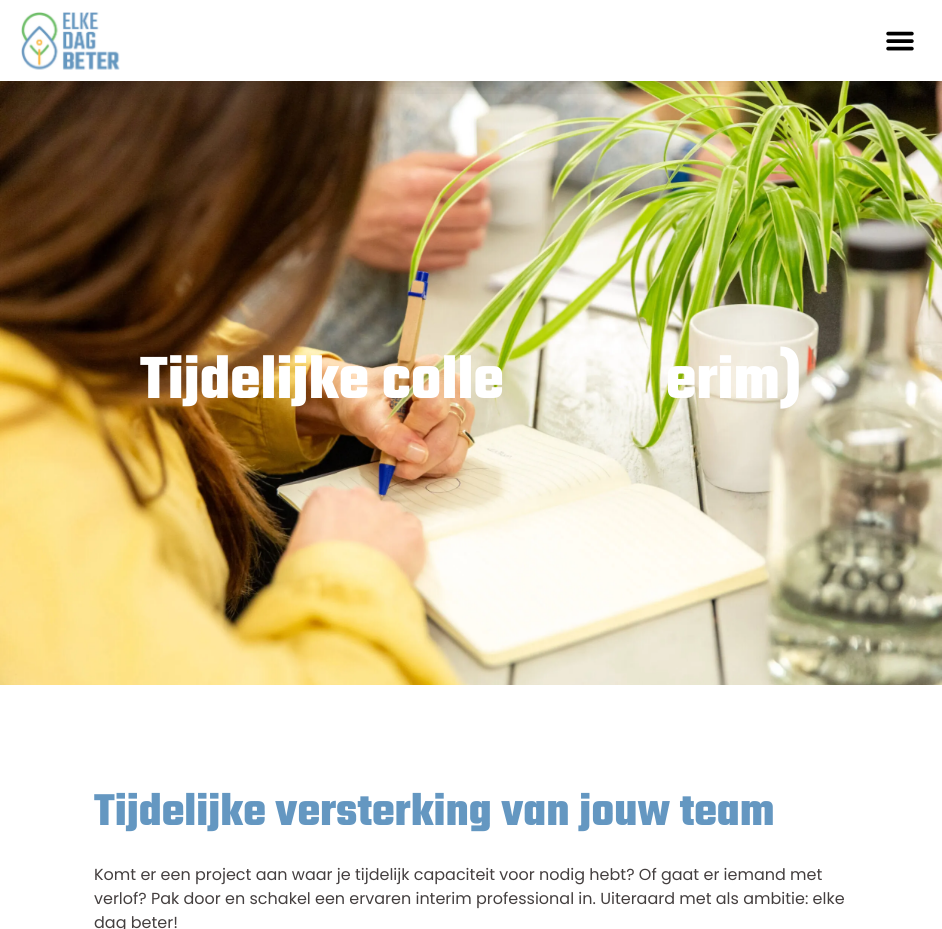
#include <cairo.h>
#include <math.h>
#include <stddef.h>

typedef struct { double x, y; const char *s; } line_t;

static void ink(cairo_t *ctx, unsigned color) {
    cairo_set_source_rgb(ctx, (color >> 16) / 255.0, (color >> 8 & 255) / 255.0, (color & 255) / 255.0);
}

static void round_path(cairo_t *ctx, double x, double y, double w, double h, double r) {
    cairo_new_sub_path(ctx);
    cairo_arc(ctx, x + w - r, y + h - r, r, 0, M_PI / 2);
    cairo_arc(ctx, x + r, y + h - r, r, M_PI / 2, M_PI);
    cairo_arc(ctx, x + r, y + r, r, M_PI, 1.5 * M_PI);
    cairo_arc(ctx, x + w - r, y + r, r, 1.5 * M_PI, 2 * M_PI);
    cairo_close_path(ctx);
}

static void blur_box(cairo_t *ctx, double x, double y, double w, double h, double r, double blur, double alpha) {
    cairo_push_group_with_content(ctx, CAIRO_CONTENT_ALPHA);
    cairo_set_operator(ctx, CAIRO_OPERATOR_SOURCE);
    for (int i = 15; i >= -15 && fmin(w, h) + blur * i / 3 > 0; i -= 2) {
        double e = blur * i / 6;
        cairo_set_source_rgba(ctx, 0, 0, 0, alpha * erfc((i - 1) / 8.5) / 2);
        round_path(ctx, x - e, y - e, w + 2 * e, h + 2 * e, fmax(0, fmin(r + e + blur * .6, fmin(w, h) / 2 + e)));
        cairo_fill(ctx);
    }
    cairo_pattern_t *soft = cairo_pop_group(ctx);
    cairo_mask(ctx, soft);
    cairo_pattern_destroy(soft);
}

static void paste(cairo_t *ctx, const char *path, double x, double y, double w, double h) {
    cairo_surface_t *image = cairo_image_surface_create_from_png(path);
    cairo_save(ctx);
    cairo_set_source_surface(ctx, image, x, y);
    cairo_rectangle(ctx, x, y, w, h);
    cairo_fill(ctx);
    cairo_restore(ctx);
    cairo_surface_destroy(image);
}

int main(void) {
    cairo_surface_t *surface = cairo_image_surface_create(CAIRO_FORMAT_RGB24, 942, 929);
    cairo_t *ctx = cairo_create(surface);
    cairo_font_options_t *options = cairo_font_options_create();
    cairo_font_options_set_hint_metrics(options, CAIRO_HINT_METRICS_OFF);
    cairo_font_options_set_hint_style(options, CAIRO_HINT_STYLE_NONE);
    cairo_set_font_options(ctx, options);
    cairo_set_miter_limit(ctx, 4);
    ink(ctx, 0xFFFFFF);
    cairo_paint(ctx);
    paste(ctx, "media/3.png", 0, 81, 942, 604);
    cairo_save(ctx);
    cairo_rectangle(ctx, 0, 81, 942, 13);
    cairo_clip(ctx);
    ink(ctx, 0x000000);
    blur_box(ctx, 0, 0, 942, 81, 0, 12, 0.15);
    cairo_restore(ctx);
    paste(ctx, "media/1.png", 21, 12, 99, 58);
    paste(ctx, "media/2.png", 886, 31, 28, 20);
    cairo_select_font_face(ctx, "Teko", CAIRO_FONT_SLANT_NORMAL, CAIRO_FONT_WEIGHT_BOLD);
    cairo_set_font_size(ctx, 64);
    ink(ctx, 0xFFFFFF);
    cairo_move_to(ctx, 140, 398);
    cairo_show_text(ctx, "Tijdelijke colle");
    cairo_move_to(ctx, 666, 398);
    cairo_show_text(ctx, "erim)");
    cairo_set_font_size(ctx, 48);
    ink(ctx, 0x6497C1);
    cairo_move_to(ctx, 94, 825);
    cairo_show_text(ctx, "Tijdelijke versterking van jouw team");
    cairo_select_font_face(ctx, "Poppins", CAIRO_FONT_SLANT_NORMAL, CAIRO_FONT_WEIGHT_NORMAL);
    cairo_set_font_size(ctx, 16);
    ink(ctx, 0x443F3F);
    {
        static const line_t items[] = {
            {94, 880, "Komt er een project aan waar je tijdelijk capaciteit voor nodig hebt? Of gaat er iemand met"},
            {94, 904, "verlof? Pak door en schakel een ervaren interim professional in. Uiteraard met als ambitie: elke"},
            {94, 928, "dag beter!"},
        };
        for (size_t i = 0; i < sizeof items / sizeof *items; i++) {
            cairo_move_to(ctx, items[i].x, items[i].y);
            cairo_show_text(ctx, items[i].s);
        }
    }
    cairo_surface_write_to_png(surface, "image.png");
    cairo_font_options_destroy(options);
    cairo_destroy(ctx);
    cairo_surface_destroy(surface);
    return 0;
}
